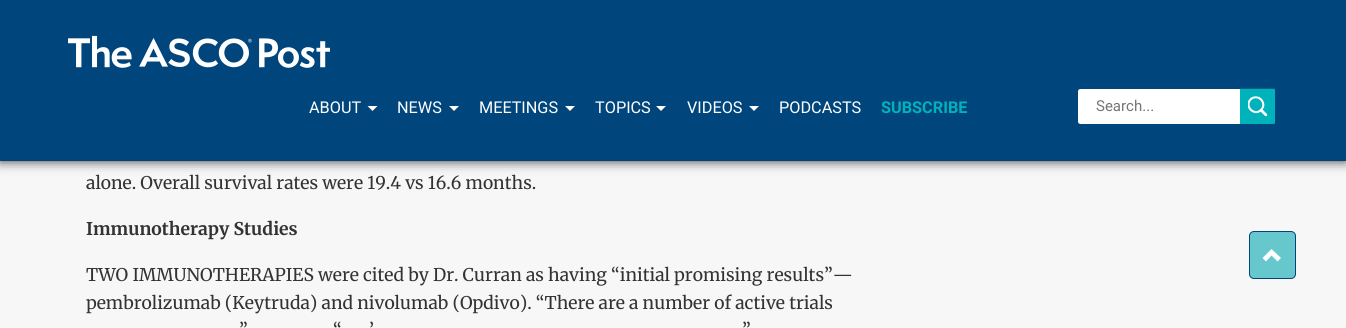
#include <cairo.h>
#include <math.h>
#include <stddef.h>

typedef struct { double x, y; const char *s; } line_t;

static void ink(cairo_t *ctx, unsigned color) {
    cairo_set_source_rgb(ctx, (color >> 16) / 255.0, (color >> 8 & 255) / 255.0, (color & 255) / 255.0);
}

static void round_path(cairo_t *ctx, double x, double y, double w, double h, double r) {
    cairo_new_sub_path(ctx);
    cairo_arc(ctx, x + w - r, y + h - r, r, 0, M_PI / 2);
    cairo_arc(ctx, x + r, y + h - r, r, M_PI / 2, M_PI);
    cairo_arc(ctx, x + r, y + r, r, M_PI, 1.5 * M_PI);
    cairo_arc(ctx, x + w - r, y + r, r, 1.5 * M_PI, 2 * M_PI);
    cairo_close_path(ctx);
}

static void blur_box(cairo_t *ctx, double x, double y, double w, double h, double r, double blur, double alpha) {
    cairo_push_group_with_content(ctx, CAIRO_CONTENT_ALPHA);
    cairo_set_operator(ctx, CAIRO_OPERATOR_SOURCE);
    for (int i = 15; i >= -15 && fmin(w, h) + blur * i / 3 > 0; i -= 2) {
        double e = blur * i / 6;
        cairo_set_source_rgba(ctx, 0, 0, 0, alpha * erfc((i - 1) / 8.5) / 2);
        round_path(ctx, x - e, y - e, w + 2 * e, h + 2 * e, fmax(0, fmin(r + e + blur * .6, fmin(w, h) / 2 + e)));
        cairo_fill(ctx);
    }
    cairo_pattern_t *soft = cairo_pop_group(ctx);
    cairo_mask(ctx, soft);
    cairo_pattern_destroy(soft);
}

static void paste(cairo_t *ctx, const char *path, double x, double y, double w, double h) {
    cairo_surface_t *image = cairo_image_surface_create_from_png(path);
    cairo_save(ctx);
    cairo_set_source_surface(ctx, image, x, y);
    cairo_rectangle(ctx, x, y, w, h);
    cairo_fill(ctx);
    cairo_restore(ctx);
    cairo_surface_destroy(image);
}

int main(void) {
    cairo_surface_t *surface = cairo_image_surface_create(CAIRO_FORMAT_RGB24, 1346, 328);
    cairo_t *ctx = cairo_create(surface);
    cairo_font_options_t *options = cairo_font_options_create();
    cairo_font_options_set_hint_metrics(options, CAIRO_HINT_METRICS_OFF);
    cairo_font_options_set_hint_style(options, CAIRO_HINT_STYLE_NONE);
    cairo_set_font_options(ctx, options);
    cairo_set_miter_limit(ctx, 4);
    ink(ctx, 0xF7F7F7);
    cairo_paint(ctx);
    ink(ctx, 0x000000);
    blur_box(ctx, 0, 0, 1346, 161, 0, 6, 0.8);
    ink(ctx, 0x00457C);
    cairo_rectangle(ctx, 0, 0, 1346, 161);
    cairo_fill(ctx);
    paste(ctx, "media/1.png", 68, 35, 262, 33);
    cairo_select_font_face(ctx, "Roboto", CAIRO_FONT_SLANT_NORMAL, CAIRO_FONT_WEIGHT_NORMAL);
    cairo_set_font_size(ctx, 16.25);
    ink(ctx, 0xFFFFFF);
    cairo_move_to(ctx, 309, 113);
    cairo_show_text(ctx, "ABOUT");
    cairo_new_path(ctx);
    cairo_move_to(ctx, 367.5, 106);
    cairo_line_to(ctx, 377.5, 106);
    cairo_line_to(ctx, 372.5, 111);
    cairo_close_path(ctx);
    cairo_fill(ctx);
    cairo_move_to(ctx, 397, 113);
    cairo_show_text(ctx, "NEWS");
    cairo_new_path(ctx);
    cairo_move_to(ctx, 449, 106);
    cairo_line_to(ctx, 459, 106);
    cairo_line_to(ctx, 454, 111);
    cairo_close_path(ctx);
    cairo_fill(ctx);
    cairo_move_to(ctx, 479, 113);
    cairo_show_text(ctx, "MEETINGS");
    cairo_new_path(ctx);
    cairo_move_to(ctx, 565, 106);
    cairo_line_to(ctx, 575, 106);
    cairo_line_to(ctx, 570, 111);
    cairo_close_path(ctx);
    cairo_fill(ctx);
    cairo_move_to(ctx, 595, 113);
    cairo_show_text(ctx, "TOPICS");
    cairo_new_path(ctx);
    cairo_move_to(ctx, 656, 106);
    cairo_line_to(ctx, 666, 106);
    cairo_line_to(ctx, 661, 111);
    cairo_close_path(ctx);
    cairo_fill(ctx);
    cairo_move_to(ctx, 687, 113);
    cairo_show_text(ctx, "VIDEOS");
    cairo_new_path(ctx);
    cairo_move_to(ctx, 749, 106);
    cairo_line_to(ctx, 759, 106);
    cairo_line_to(ctx, 754, 111);
    cairo_close_path(ctx);
    cairo_fill(ctx);
    cairo_move_to(ctx, 779, 113);
    cairo_show_text(ctx, "PODCASTS");
    cairo_select_font_face(ctx, "Roboto", CAIRO_FONT_SLANT_NORMAL, CAIRO_FONT_WEIGHT_BOLD);
    ink(ctx, 0x00B3BB);
    cairo_move_to(ctx, 881, 113);
    cairo_show_text(ctx, "SUBSCRIBE");
    ink(ctx, 0xFFFFFF);
    cairo_new_path(ctx);
    cairo_move_to(ctx, 1080.5, 89);
    cairo_line_to(ctx, 1240, 89);
    cairo_line_to(ctx, 1240, 124);
    cairo_line_to(ctx, 1080.5, 124);
    cairo_curve_to(ctx, 1079, 124, 1078, 123, 1078, 121.5);
    cairo_line_to(ctx, 1078, 91.5);
    cairo_curve_to(ctx, 1078, 90, 1079, 89, 1080.5, 89);
    cairo_close_path(ctx);
    cairo_fill(ctx);
    cairo_select_font_face(ctx, "Roboto", CAIRO_FONT_SLANT_NORMAL, CAIRO_FONT_WEIGHT_NORMAL);
    cairo_set_font_size(ctx, 15);
    ink(ctx, 0x757575);
    cairo_move_to(ctx, 1096, 111);
    cairo_show_text(ctx, "Search...");
    ink(ctx, 0x00B3BB);
    cairo_new_path(ctx);
    cairo_move_to(ctx, 1240, 89);
    cairo_line_to(ctx, 1272.5, 89);
    cairo_curve_to(ctx, 1274, 89, 1275, 90, 1275, 91.5);
    cairo_line_to(ctx, 1275, 121.5);
    cairo_curve_to(ctx, 1275, 123, 1274, 124, 1272.5, 124);
    cairo_line_to(ctx, 1240, 124);
    cairo_close_path(ctx);
    cairo_fill(ctx);
    cairo_save(ctx);
    cairo_rectangle(ctx, 1248, 96, 20, 20);
    cairo_clip(ctx);
    cairo_new_path(ctx);
    cairo_move_to(ctx, 1250.5, 99.5);
    cairo_curve_to(ctx, 1257.5, 92.5, 1268, 103, 1261, 110);
    cairo_curve_to(ctx, 1254.5, 116.5, 1244, 106.5, 1250.5, 99.5);
    cairo_close_path(ctx);
    ink(ctx, 0xFFFFFF);
    cairo_set_line_width(ctx, 2.1);
    cairo_stroke(ctx);
    cairo_restore(ctx);
    cairo_new_path(ctx);
    cairo_move_to(ctx, 1261.5, 110.5);
    cairo_line_to(ctx, 1266, 115);
    ink(ctx, 0xFFFFFF);
    cairo_set_line_width(ctx, 2.8);
    cairo_set_line_cap(ctx, CAIRO_LINE_CAP_ROUND);
    cairo_stroke(ctx);
    cairo_new_path(ctx);
    cairo_move_to(ctx, 1244, 92.5);
    cairo_line_to(ctx, 1271, 92.5);
    cairo_line_to(ctx, 1271, 120);
    cairo_line_to(ctx, 1244, 120);
    cairo_close_path(ctx);
    ink(ctx, 0x00B3BB);
    cairo_set_line_width(ctx, 7.5);
    cairo_set_line_cap(ctx, CAIRO_LINE_CAP_BUTT);
    cairo_stroke(ctx);
    cairo_select_font_face(ctx, "Merriweather", CAIRO_FONT_SLANT_NORMAL, CAIRO_FONT_WEIGHT_NORMAL);
    cairo_set_font_size(ctx, 17.5);
    ink(ctx, 0x333333);
    cairo_move_to(ctx, 86, 189);
    cairo_show_text(ctx, "alone. Overall survival rates were 19.4 vs 16.6 months.");
    cairo_select_font_face(ctx, "Merriweather", CAIRO_FONT_SLANT_NORMAL, CAIRO_FONT_WEIGHT_BOLD);
    cairo_move_to(ctx, 86, 235);
    cairo_show_text(ctx, "Immunotherapy Studies");
    cairo_select_font_face(ctx, "Merriweather", CAIRO_FONT_SLANT_NORMAL, CAIRO_FONT_WEIGHT_NORMAL);
    {
        static const line_t items[] = {
            {86, 281, "TWO IMMUNOTHERAPIES were cited by Dr. Curran as having “initial promising results”—"},
            {86, 309, "pembrolizumab (Keytruda) and nivolumab (Opdivo). “There are a number of active trials"},
            {239, 336, "”"},
            {333, 336, "“"},
            {369, 336, "’"},
            {742, 336, "”"},
        };
        for (size_t i = 0; i < sizeof items / sizeof *items; i++) {
            cairo_move_to(ctx, items[i].x, items[i].y);
            cairo_show_text(ctx, items[i].s);
        }
    }
    ink(ctx, 0x66C7CD);
    round_path(ctx, 1249.5, 231.5, 46, 47, 4.5);
    cairo_fill_preserve(ctx);
    ink(ctx, 0x00457C);
    cairo_set_line_width(ctx, 1);
    cairo_stroke(ctx);
    ink(ctx, 0xFFFFFF);
    cairo_new_path(ctx);
    cairo_move_to(ctx, 1281, 258);
    cairo_line_to(ctx, 1277.5, 261.5);
    cairo_line_to(ctx, 1271.5, 255.5);
    cairo_line_to(ctx, 1266, 261.5);
    cairo_line_to(ctx, 1262.5, 258);
    cairo_line_to(ctx, 1271.5, 249);
    cairo_close_path(ctx);
    cairo_fill(ctx);
    cairo_surface_write_to_png(surface, "image.png");
    cairo_font_options_destroy(options);
    cairo_destroy(ctx);
    cairo_surface_destroy(surface);
    return 0;
}
